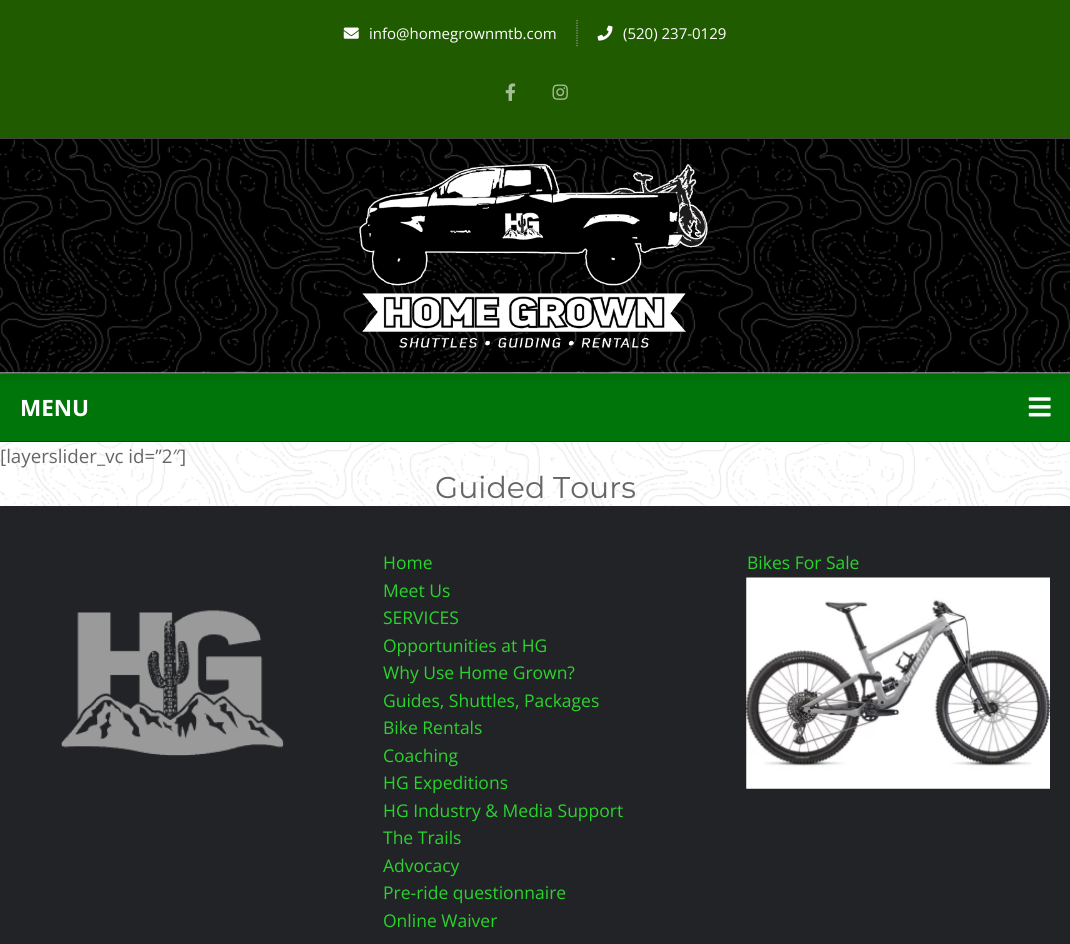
import math
import cairocffi as cairo

surface = cairo.ImageSurface(cairo.FORMAT_RGB24, 1070, 944)
cr = cairo.Context(surface)
options = cairo.FontOptions()
options.set_hint_metrics(cairo.HINT_METRICS_OFF)
options.set_hint_style(cairo.HINT_STYLE_NONE)
cr.set_font_options(options)
cr.set_miter_limit(4)


def use_color(code):
    cr.set_source_rgb(*(v / 255 for v in bytes.fromhex(code[-6:])))


def round_rect(x, y, w, h, r):
    cr.new_sub_path()
    for i, (u, v) in enumerate([(x + w - r, y + h - r), (x + r, y + h - r), (x + r, y + r), (x + w - r, y + r)]):
        cr.arc(u, v, r, i * math.pi / 2, (i + 1) * math.pi / 2)
    cr.close_path()


def shadow(x, y, w, h, r, blur, alpha):
    cr.push_group_with_content(cairo.CONTENT_ALPHA)
    cr.set_operator(cairo.OPERATOR_SOURCE)
    for i in range(15, -16, -2):
        e = blur * i / 6
        if min(w, h) + 2 * e > 0:
            cr.set_source_rgba(0, 0, 0, alpha * math.erfc((i - 1) / 8.5) / 2)
            round_rect(x - e, y - e, w + 2 * e, h + 2 * e, max(0, min(r + e + blur * .6, min(w, h) / 2 + e)))
            cr.fill()
    cr.mask(cr.pop_group())


def picture(path, x, y, w, h):
    cr.save()
    cr.set_source_surface(cairo.ImageSurface.create_from_png(path), x, y)
    cr.rectangle(x, y, w, h)
    cr.fill()
    cr.restore()


use_color("#ffffff")
cr.paint()
picture("img1.png", 0, 372, 1070, 134)
use_color("#007509")
cr.rectangle(0, 374, 1070, 67)
cr.fill()
use_color("#3c9100")
cr.rectangle(0, 373, 1070, 1)
cr.fill()
use_color("#000000")
shadow(0, 144, 1070, 234, 0, 6, 0.08)
use_color("#205b00")
cr.rectangle(0, 0, 1070, 138)
cr.fill()
use_color("#444444")
cr.rectangle(0, 138, 1070, 1)
cr.fill()
picture("img2.png", 343, 27, 16, 12)
cr.select_font_face("Open Sans")
cr.set_font_size(15)
use_color("#ffffff")
cr.move_to(369, 39)
cr.show_text("info@homegrownmtb.com")
cr.new_path()
cr.move_to(577, 20)
cr.line_to(577, 47.5)
use_color("#999999")
cr.set_line_width(1.2)
cr.set_dash([1.25, 1.25])
cr.stroke()
picture("img3.png", 597, 25, 16, 16)
use_color("#ffffff")
cr.move_to(623, 39)
cr.show_text("(520) 237-0129")
picture("img4.png", 505, 83, 11, 18)
picture("img5.png", 552, 84, 16, 16)
picture("img6.png", 0, 139, 1070, 234)
picture("img7.png", 359, 163, 349, 185)
use_color("#123f16")
cr.rectangle(0, 441, 1070, 1)
cr.fill()
cr.select_font_face("Open Sans", cairo.FONT_SLANT_NORMAL, cairo.FONT_WEIGHT_BOLD)
cr.set_font_size(22.5)
use_color("#ffffff")
cr.move_to(20, 416)
cr.show_text("MENU")
picture("img8.png", 1028, 397, 23, 20)
cr.select_font_face("Open Sans")
cr.set_font_size(18.75)
use_color("#666666")
cr.move_to(0, 463)
cr.show_text("[layerslider_vc id=”2″]")
cr.select_font_face("Montserrat Thin")
cr.set_font_size(30)
cr.move_to(435, 498)
cr.show_text("Guided Tours")
use_color("#222326")
cr.rectangle(0, 506, 1070, 438)
cr.fill()
picture("img9.png", 61, 610, 223, 146)
cr.select_font_face("Open Sans")
cr.set_font_size(17.5)
use_color("#2ad32d")
cr.move_to(383, 569)
cr.show_text("Home")
cr.move_to(383, 597)
cr.show_text("Meet Us")
cr.move_to(383, 624)
cr.show_text("SERVICES")
cr.move_to(383, 652)
cr.show_text("Opportunities at HG")
cr.move_to(383, 679)
cr.show_text("Why Use Home Grown?")
cr.move_to(383, 707)
cr.show_text("Guides, Shuttles, Packages")
cr.move_to(383, 734)
cr.show_text("Bike Rentals")
cr.move_to(383, 762)
cr.show_text("Coaching")
cr.move_to(383, 789)
cr.show_text("HG Expeditions")
cr.move_to(383, 817)
cr.show_text("HG Industry & Media Support")
cr.move_to(383, 844)
cr.show_text("The Trails")
cr.move_to(383, 872)
cr.show_text("Advocacy")
cr.move_to(383, 899)
cr.show_text("Pre-ride questionnaire")
cr.move_to(383, 927)
cr.show_text("Online Waiver")
cr.move_to(747, 569)
cr.show_text("Bikes For Sale")
picture("img10.png", 746, 577, 304, 212)
surface.write_to_png("result.png")
